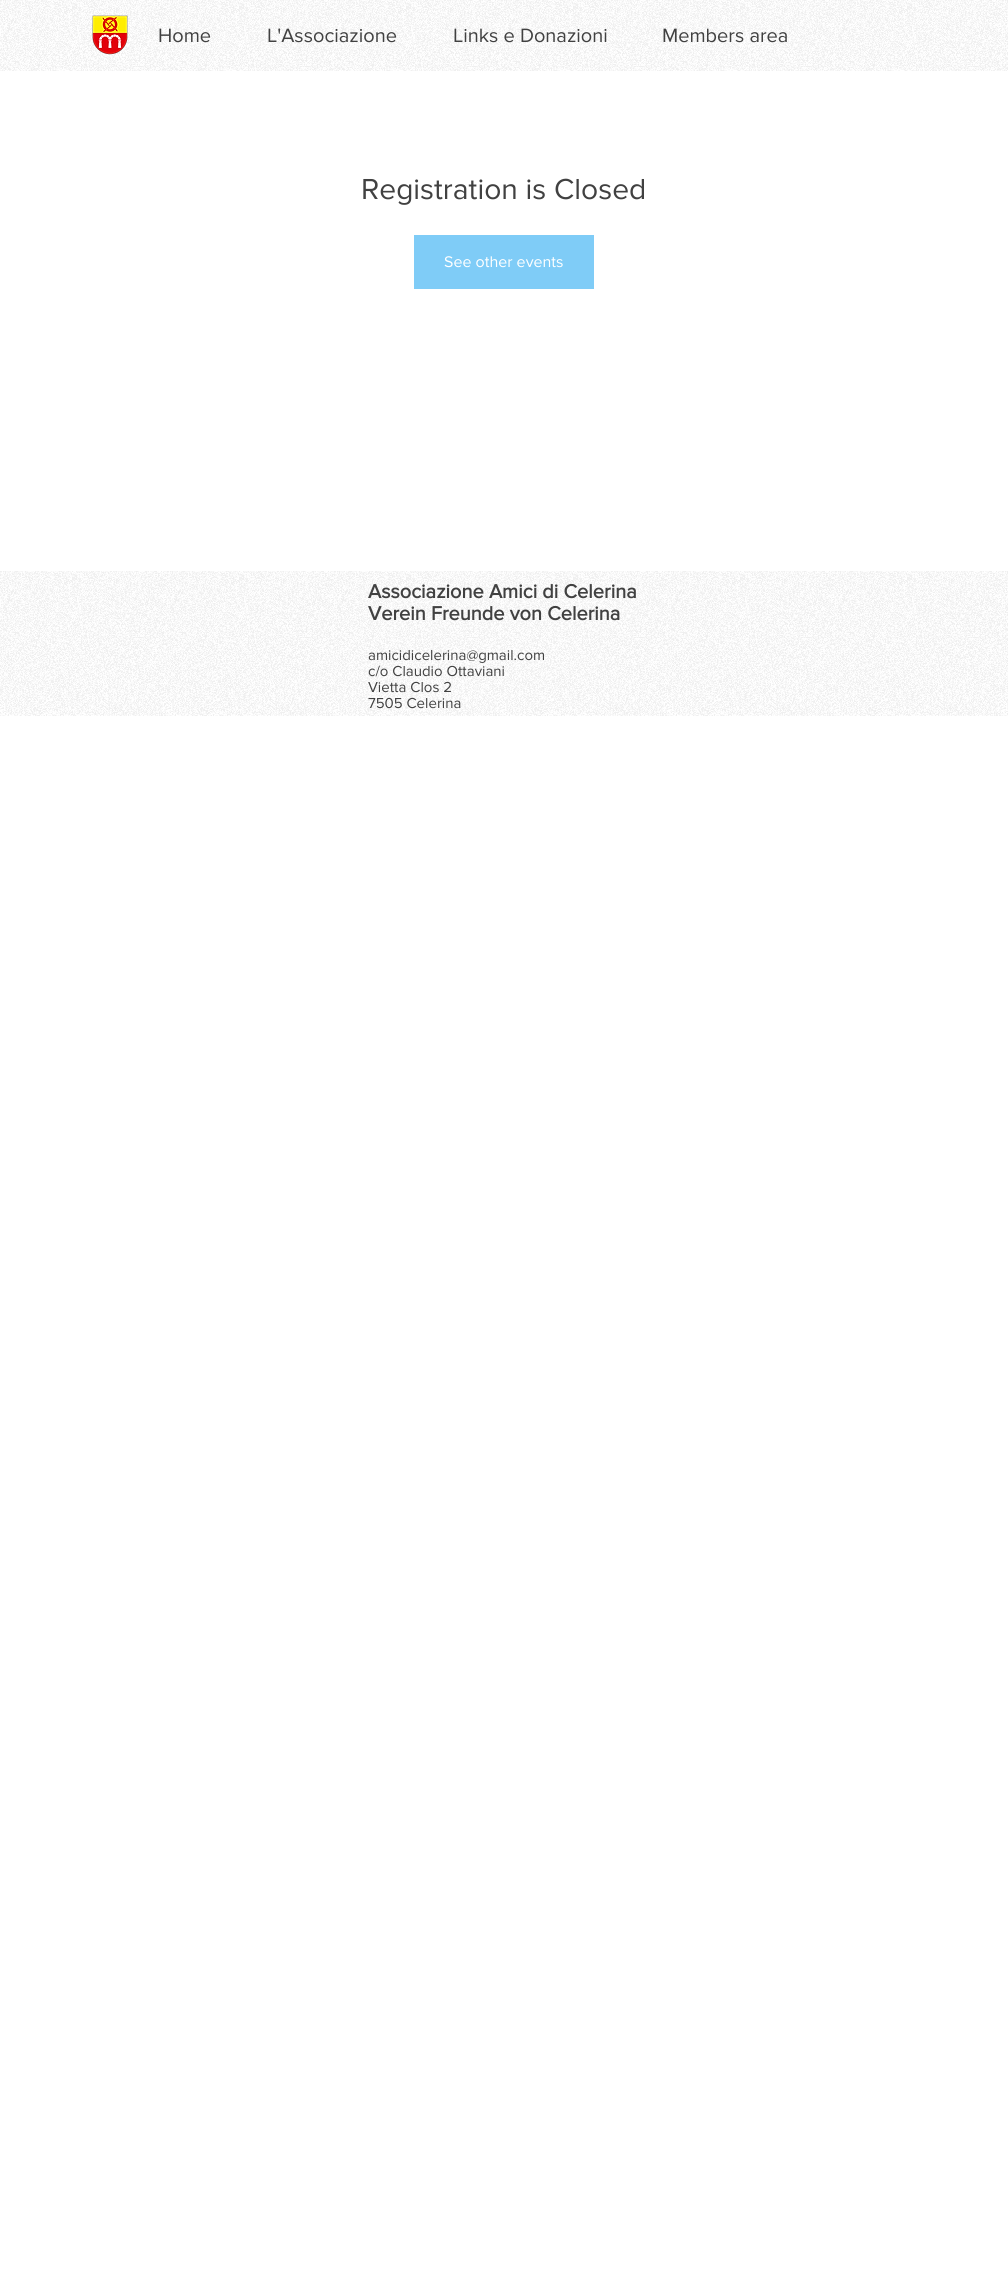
import math
import cairocffi as cairo

surface = cairo.ImageSurface(cairo.FORMAT_RGB24, 1008, 2287)
cr = cairo.Context(surface)
options = cairo.FontOptions()
options.set_hint_metrics(cairo.HINT_METRICS_OFF)
options.set_hint_style(cairo.HINT_STYLE_NONE)
cr.set_font_options(options)
cr.set_miter_limit(4)


def use_color(code):
    cr.set_source_rgb(*(v / 255 for v in bytes.fromhex(code[-6:])))


def picture(path, x, y, w, h):
    cr.save()
    cr.set_source_surface(cairo.ImageSurface.create_from_png(path), x, y)
    cr.rectangle(x, y, w, h)
    cr.fill()
    cr.restore()


use_color("#ffffff")
cr.paint()
picture("img1.png", 0, 0, 1008, 71)
picture("img2.png", 92, 15, 36, 40)
cr.select_font_face("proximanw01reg")
cr.set_font_size(20)
use_color("#414141")
cr.move_to(158, 42)
cr.show_text("Home")
cr.move_to(267, 42)
cr.show_text("L'Associazione")
cr.move_to(453, 42)
cr.show_text("Links e Donazioni")
cr.move_to(662, 42)
cr.show_text("Members area")
cr.set_font_size(30)
cr.move_to(361, 199)
cr.show_text("Registration is Closed")
use_color("#7fccf7")
cr.rectangle(414, 235, 180, 54)
cr.fill()
cr.set_font_size(16)
use_color("#ffffff")
cr.move_to(444, 267)
cr.show_text("See other events")
picture("img3.png", 0, 571, 1008, 145)
cr.select_font_face("proximanw01reg", cairo.FONT_SLANT_NORMAL, cairo.FONT_WEIGHT_BOLD)
cr.set_font_size(20)
use_color("#414141")
cr.move_to(368, 598)
cr.show_text("Associazione Amici di Celerina")
cr.move_to(368, 620)
cr.show_text("Verein Freunde von Celerina")
cr.select_font_face("proximanw01reg")
cr.set_font_size(15)
cr.move_to(368, 660)
cr.show_text("amicidicelerina@gmail.com")
cr.move_to(368, 676)
cr.show_text("c/o Claudio Ottaviani")
cr.move_to(368, 692)
cr.show_text("Vietta Clos 2")
cr.move_to(368, 708)
cr.show_text("7505 Celerina")
surface.write_to_png("result.png")
